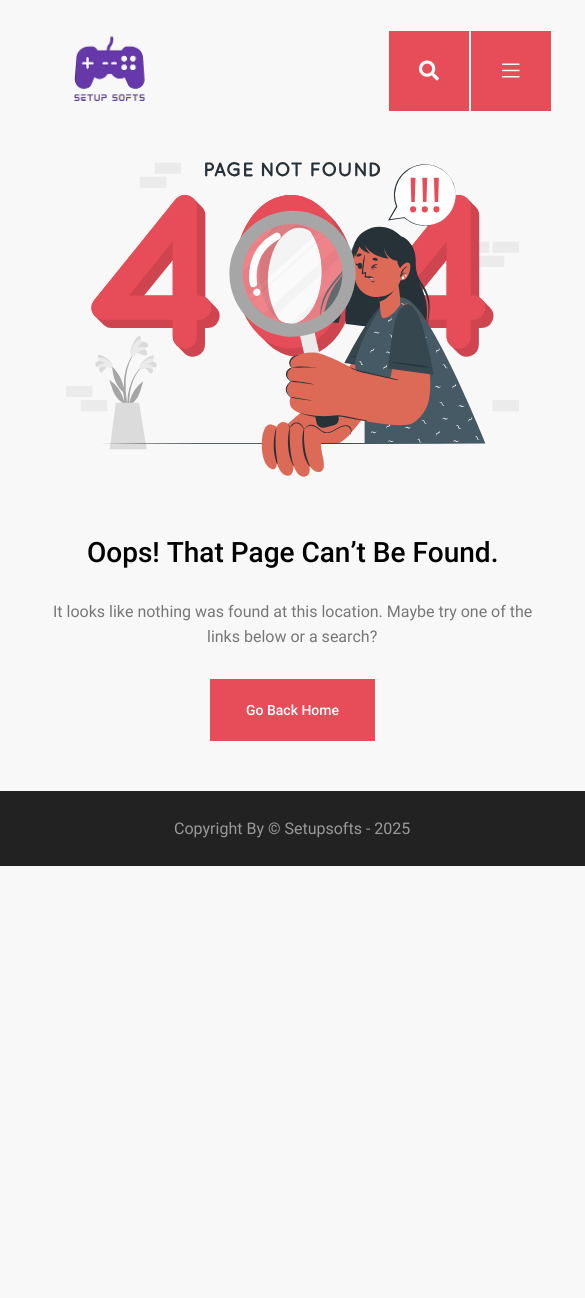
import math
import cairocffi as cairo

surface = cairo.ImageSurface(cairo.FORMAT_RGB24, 585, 1298)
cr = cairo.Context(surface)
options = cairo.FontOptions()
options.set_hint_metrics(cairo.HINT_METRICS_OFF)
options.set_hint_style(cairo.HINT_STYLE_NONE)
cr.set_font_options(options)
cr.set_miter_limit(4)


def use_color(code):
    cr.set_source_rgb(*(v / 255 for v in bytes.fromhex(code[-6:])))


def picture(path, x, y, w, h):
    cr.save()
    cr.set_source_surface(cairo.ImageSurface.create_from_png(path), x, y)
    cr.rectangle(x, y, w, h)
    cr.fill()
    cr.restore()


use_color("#f8f8f8")
cr.paint()
picture("img1.png", 74, 36, 71, 65)
use_color("#e74d58")
cr.rectangle(389, 31, 80, 80)
cr.fill()
picture("img2.png", 419, 60, 20, 21)
cr.rectangle(471, 31, 80, 80)
cr.fill()
picture("img3.png", 502, 63, 18, 15)
picture("img4.png", 66, 162, 453, 315)
cr.select_font_face("Roboto Medium")
cr.set_font_size(28)
use_color("#000000")
cr.move_to(87, 562)
cr.show_text("Oops! That Page Can’t Be Found.")
cr.select_font_face("Roboto")
cr.set_font_size(16)
use_color("#777777")
cr.move_to(53, 617)
cr.show_text("It looks like nothing was found at this location. Maybe try one of the")
cr.move_to(207, 642)
cr.show_text("links below or a search?")
use_color("#e74d58")
cr.rectangle(210, 679, 165, 62)
cr.fill()
cr.select_font_face("Roboto Medium")
cr.set_font_size(14)
use_color("#ffffff")
cr.move_to(246, 715)
cr.show_text("Go Back Home")
use_color("#222222")
cr.rectangle(0, 791, 585, 75)
cr.fill()
cr.select_font_face("Roboto")
cr.set_font_size(16)
use_color("#999999")
cr.move_to(174, 834)
cr.show_text("Copyright By © Setupsofts - 2025")
surface.write_to_png("result.png")
